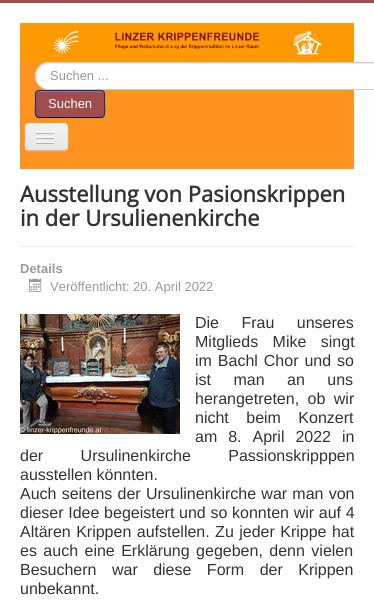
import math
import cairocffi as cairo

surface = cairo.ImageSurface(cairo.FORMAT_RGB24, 374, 609)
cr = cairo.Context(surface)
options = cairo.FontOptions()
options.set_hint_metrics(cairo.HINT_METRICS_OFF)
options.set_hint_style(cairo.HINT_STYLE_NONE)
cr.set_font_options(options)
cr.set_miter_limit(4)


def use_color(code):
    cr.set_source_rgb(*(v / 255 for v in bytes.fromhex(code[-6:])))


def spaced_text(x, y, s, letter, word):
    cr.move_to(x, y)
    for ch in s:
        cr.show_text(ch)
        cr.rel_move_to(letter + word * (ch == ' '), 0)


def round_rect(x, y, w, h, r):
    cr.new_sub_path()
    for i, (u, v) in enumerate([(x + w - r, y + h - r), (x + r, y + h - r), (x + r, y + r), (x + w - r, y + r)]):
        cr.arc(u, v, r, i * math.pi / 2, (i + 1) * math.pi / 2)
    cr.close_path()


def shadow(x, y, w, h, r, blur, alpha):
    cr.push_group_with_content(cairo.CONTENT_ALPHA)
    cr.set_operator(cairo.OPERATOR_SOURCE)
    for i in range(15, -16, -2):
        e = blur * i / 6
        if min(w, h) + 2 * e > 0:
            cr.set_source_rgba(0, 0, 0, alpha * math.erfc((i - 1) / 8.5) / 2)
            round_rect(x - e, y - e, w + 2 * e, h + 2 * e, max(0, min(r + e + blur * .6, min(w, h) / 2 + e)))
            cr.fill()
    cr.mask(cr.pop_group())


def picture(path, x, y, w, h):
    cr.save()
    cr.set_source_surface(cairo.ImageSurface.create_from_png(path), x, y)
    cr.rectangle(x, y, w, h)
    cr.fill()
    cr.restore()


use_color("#ffffff")
cr.paint()
use_color("#a14d4d")
cr.rectangle(0, 0, 374, 3)
cr.fill()
use_color("#ff931f")
cr.rectangle(20, 62, 334, 107)
cr.fill()
picture("img1.png", 20, 23, 334, 39)
use_color("#ffffff")
round_rect(35, 62, 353, 28, 14)
cr.fill()
use_color("#ececec")
cr.new_path()
cr.move_to(49, 64)
cr.line_to(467, 64)
cr.curve_to(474, 64, 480, 70, 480, 77)
cr.curve_to(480, 72, 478, 68, 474, 65)
cr.curve_to(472, 64, 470, 63, 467, 63)
cr.line_to(49, 63)
cr.curve_to(42, 63, 36, 69, 36, 77)
cr.curve_to(36, 70, 42, 64, 49, 64)
cr.close_path()
cr.fill()
round_rect(35.5, 62.5, 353, 27, 13.5)
use_color("#cccccc")
cr.set_line_width(1)
cr.stroke()
cr.select_font_face("Liberation Sans")
cr.set_font_size(13)
use_color("#999999")
cr.move_to(50, 80)
cr.show_text("Suchen ...")
use_color("#000000")
shadow(35, 91, 70, 28, 4, 1, 0.05)
use_color("#a14d4d")
round_rect(35, 90, 70, 28, 4)
cr.fill()
use_color("#b47171")
cr.new_path()
cr.move_to(39, 92)
cr.line_to(101, 92)
cr.curve_to(103, 92, 104, 93, 104, 95)
cr.curve_to(104, 88, 95, 91, 91, 91)
cr.line_to(49, 91)
cr.curve_to(45, 91, 36, 88, 36, 95)
cr.curve_to(36, 93, 37, 92, 39, 92)
cr.close_path()
cr.fill()
cr.new_path()
cr.move_to(103.5, 116.5)
cr.line_to(101.5, 117.5)
cr.line_to(38.5, 117.5)
cr.line_to(36.5, 116.5)
use_color("#001641")
cr.stroke()
cr.new_path()
cr.move_to(36.5, 116.5)
cr.curve_to(34.5, 114, 35.5, 106.5, 35.5, 104)
cr.curve_to(35.5, 88.5, 33.5, 90.5, 49.5, 90.5)
cr.line_to(90.5, 90.5)
cr.curve_to(106.5, 90.5, 104.5, 88.5, 104.5, 104)
cr.curve_to(104.5, 106.5, 105.5, 114, 103.5, 116.5)
use_color("#002f8d")
cr.stroke()
use_color("#ffffff")
cr.move_to(48, 108)
cr.show_text("Suchen")
use_color("#ff9b30")
cr.new_path()
cr.move_to(25, 147)
cr.curve_to(25, 153, 30, 152, 35, 152)
cr.line_to(58, 152)
cr.curve_to(63, 152, 68, 153, 68, 147)
cr.curve_to(68, 149, 66, 151, 64, 151)
cr.line_to(29, 151)
cr.curve_to(27, 151, 25, 149, 25, 147)
cr.close_path()
cr.fill()
use_color("#ededed")
round_rect(25, 123, 43, 28, 4)
cr.fill()
cr.save()
round_rect(25, 123, 43, 28, 4)
cr.clip()
gradient = cairo.LinearGradient(47, 124, 47, 150)
gradient.add_color_stop_rgba(0, 0.949, 0.949, 0.949, 1)
gradient.add_color_stop_rgba(1, 0.902, 0.902, 0.902, 1)
cr.set_source(gradient)
cr.rectangle(25, 124, 43, 26)
cr.fill()
cr.restore()
cr.new_path()
cr.move_to(66.5, 149.5)
cr.curve_to(66, 150, 65, 150.5, 64, 150.5)
cr.line_to(29, 150.5)
cr.curve_to(28, 150.5, 27, 150, 26.5, 149.5)
use_color("#bfbfbf")
cr.stroke()
cr.new_path()
cr.move_to(26.5, 149.5)
cr.curve_to(24.5, 147, 25.5, 139.5, 25.5, 137)
cr.curve_to(25.5, 125, 23, 123.5, 35, 123.5)
cr.line_to(58, 123.5)
cr.curve_to(70, 123.5, 67.5, 125, 67.5, 137)
cr.curve_to(67.5, 139.5, 68.5, 147, 66.5, 149.5)
use_color("#e6e6e6")
cr.stroke()
use_color("#b3b3b3")
cr.new_path()
cr.move_to(36, 132.5)
cr.curve_to(35, 134.5, 39.5, 134, 39.5, 134)
cr.line_to(50.5, 134)
cr.curve_to(50.5, 134, 55, 134.5, 54, 132.5)
cr.curve_to(53, 133.5, 46.5, 133, 45, 133)
cr.curve_to(43.5, 133, 37, 133.5, 36, 132.5)
cr.close_path()
cr.fill()
use_color("#f5f5f5")
round_rect(36, 131, 18, 2, 1)
cr.fill()
use_color("#b0b0b0")
cr.new_path()
cr.move_to(36, 137.5)
cr.curve_to(35, 139.5, 39.5, 139, 39.5, 139)
cr.line_to(50.5, 139)
cr.curve_to(50.5, 139, 55, 139.5, 54, 137.5)
cr.curve_to(53, 138.5, 46.5, 138, 45, 138)
cr.curve_to(43.5, 138, 37, 138.5, 36, 137.5)
cr.close_path()
cr.fill()
use_color("#f5f5f5")
round_rect(36, 136, 18, 2, 1)
cr.fill()
use_color("#afafaf")
cr.new_path()
cr.move_to(36, 142.5)
cr.curve_to(35, 144.5, 39.5, 144, 39.5, 144)
cr.line_to(50.5, 144)
cr.curve_to(50.5, 144, 55, 144.5, 54, 142.5)
cr.curve_to(53, 143.5, 46.5, 143, 45, 143)
cr.curve_to(43.5, 143, 37, 143.5, 36, 142.5)
cr.close_path()
cr.fill()
use_color("#f5f5f5")
round_rect(36, 141, 18, 2, 1)
cr.fill()
use_color("#eeeeee")
cr.rectangle(20, 246, 334, 1)
cr.fill()
cr.select_font_face("Open Sans", cairo.FONT_SLANT_NORMAL, cairo.FONT_WEIGHT_BOLD)
cr.set_font_size(22)
use_color("#333333")
cr.move_to(20, 202)
cr.show_text("Ausstellung von Pasionskrippen")
cr.move_to(20, 226)
cr.show_text("in der Ursulienenkirche")
cr.select_font_face("Liberation Sans", cairo.FONT_SLANT_NORMAL, cairo.FONT_WEIGHT_BOLD)
cr.set_font_size(13)
use_color("#999999")
cr.move_to(20, 273)
cr.show_text("Details")
picture("img2.png", 29, 278, 13, 14)
cr.select_font_face("Liberation Sans")
cr.move_to(50, 291)
cr.show_text("Veröffentlicht: 20. April 2022")
picture("img3.png", 20, 314, 160, 120)
cr.set_font_size(16)
use_color("#333333")
spaced_text(195, 328, "Die Frau unseres", 0, 18)
spaced_text(195, 347, "Mitglieds Mike singt", 0, 10)
spaced_text(195, 366, "im Bachl Chor und so", 0, 1.5)
spaced_text(195, 385, "ist man an uns", 0, 18)
spaced_text(195, 404, "herangetreten, ob wir", 0, 4)
spaced_text(195, 423, "nicht beim Konzert", 0, 13)
spaced_text(195, 442, "am 8. April 2022 in", 0, 6.5)
spaced_text(20, 461, "der Ursulinenkirche Passionskripppen", 0, 33)
cr.move_to(20, 480)
cr.show_text("ausstellen könnten.")
spaced_text(20, 499, "Auch seitens der Ursulinenkirche war man von", 0, 0.75)
spaced_text(20, 518, "dieser Idee begeistert und so konnten wir auf 4", 0, 0.25)
spaced_text(20, 537, "Altären Krippen aufstellen. Zu jeder Krippe hat", 0, 1)
spaced_text(20, 556, "es auch eine Erklärung gegeben, denn vielen", 0, 2)
spaced_text(20, 575, "Besuchern war diese Form der Krippen", 0, 11)
cr.move_to(20, 594)
cr.show_text("unbekannt.")
surface.write_to_png("result.png")
